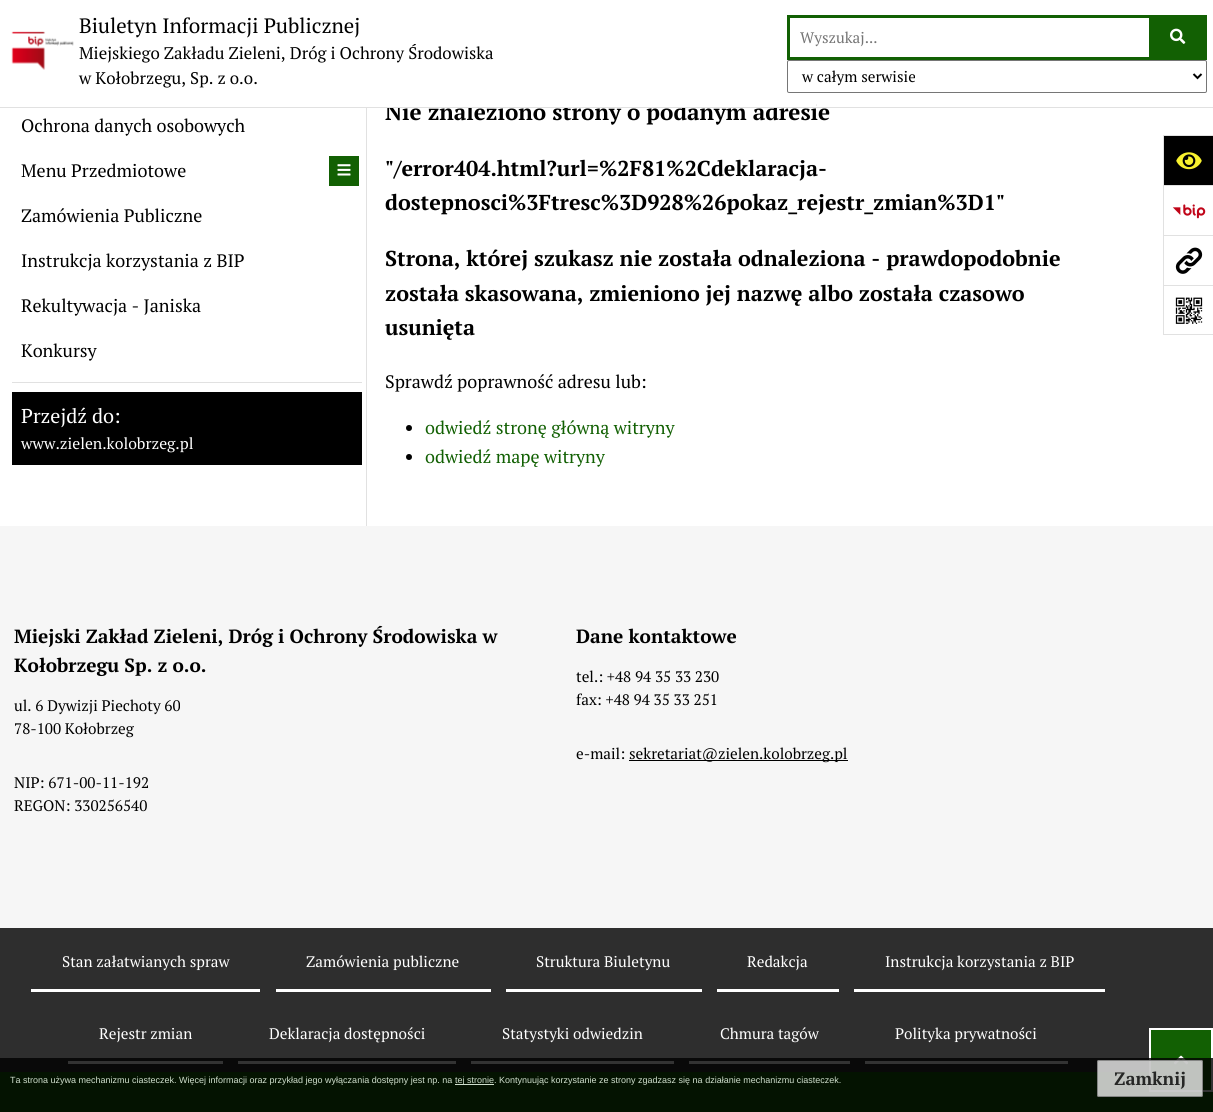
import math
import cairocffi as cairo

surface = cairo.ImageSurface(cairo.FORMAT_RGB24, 1213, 1112)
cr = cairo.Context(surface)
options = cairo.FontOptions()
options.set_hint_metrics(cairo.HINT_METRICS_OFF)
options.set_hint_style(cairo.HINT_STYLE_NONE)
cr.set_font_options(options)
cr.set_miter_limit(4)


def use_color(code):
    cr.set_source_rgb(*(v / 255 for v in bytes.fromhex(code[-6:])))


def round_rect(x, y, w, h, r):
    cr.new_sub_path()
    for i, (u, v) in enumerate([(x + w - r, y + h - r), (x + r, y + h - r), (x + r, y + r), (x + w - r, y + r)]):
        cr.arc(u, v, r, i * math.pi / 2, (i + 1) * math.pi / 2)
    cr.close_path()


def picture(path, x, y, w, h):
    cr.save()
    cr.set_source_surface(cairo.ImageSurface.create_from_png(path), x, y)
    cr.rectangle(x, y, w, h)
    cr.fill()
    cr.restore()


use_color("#ffffff")
cr.paint()
cr.select_font_face("PT Serif", cairo.FONT_SLANT_NORMAL, cairo.FONT_WEIGHT_BOLD)
cr.set_font_size(22.5)
use_color("#000000")
cr.move_to(385, 120)
cr.show_text("Nie znaleziono strony o podanym adresie")
use_color("#ffffff")
cr.rectangle(385, 103, 431, 4)
cr.fill()
use_color("#e1e1e1")
cr.rectangle(0, 107, 1213, 1)
cr.fill()
picture("img1.png", 11, 31, 63, 39)
cr.select_font_face("PT Serif")
cr.set_font_size(20.75)
use_color("#000000")
cr.move_to(79, 33)
cr.show_text("Biuletyn Informacji Publicznej")
cr.set_font_size(16.85)
cr.move_to(79, 59)
cr.show_text("Miejskiego Zakładu Zieleni, Dróg i Ochrony Środowiska")
cr.move_to(79, 84)
cr.show_text("w Kołobrzegu, Sp. z o.o.")
cr.rectangle(788.5, 16.5, 362, 42)
use_color("#126003")
cr.set_line_width(3)
cr.stroke()
cr.set_font_size(15.25)
use_color("#757575")
cr.move_to(800, 43)
cr.show_text("Wyszukaj...")
use_color("#126003")
cr.rectangle(1152, 15, 55, 45)
cr.fill()
picture("img2.png", 1170, 28, 16, 16)
round_rect(787.5, 60.5, 419, 32, 1.5)
use_color("#767676")
cr.set_line_width(1)
cr.stroke()
cr.new_path()
cr.move_to(1193.5, 74)
cr.line_to(1197.5, 78)
cr.line_to(1201.5, 74)
use_color("#000000")
cr.set_line_width(2)
cr.stroke()
cr.move_to(802, 82)
cr.show_text("w całym serwisie")
cr.set_font_size(18)
cr.move_to(21, 132)
cr.show_text("Ochrona danych osobowych")
cr.move_to(21, 177)
cr.show_text("Menu Przedmiotowe")
use_color("#126003")
cr.rectangle(329, 156, 30, 30)
cr.fill()
picture("img3.png", 337, 164, 14, 12)
use_color("#000000")
cr.move_to(21, 222)
cr.show_text("Zamówienia Publiczne")
cr.move_to(21, 267)
cr.show_text("Instrukcja korzystania z BIP")
cr.move_to(21, 312)
cr.show_text("Rekultywacja - Janiska")
cr.move_to(21, 357)
cr.show_text("Konkursy")
use_color("#e1e1e1")
cr.rectangle(12, 382, 350, 1)
cr.fill()
use_color("#000000")
cr.rectangle(1164, 136, 49, 49)
cr.fill()
use_color("#e1e1e1")
cr.rectangle(1163, 135, 50, 1)
cr.fill()
cr.rectangle(1163, 135, 1, 50)
cr.fill()
picture("img4.png", 1176, 152, 26, 18)
cr.rectangle(1163, 185, 50, 1)
cr.fill()
cr.rectangle(1163, 185, 1, 50)
cr.fill()
picture("img5.png", 1172, 204, 34, 15)
cr.rectangle(1163, 235, 50, 1)
cr.fill()
cr.rectangle(1163, 235, 1, 50)
cr.fill()
picture("img6.png", 1175, 247, 28, 27)
cr.rectangle(1163, 285, 50, 1)
cr.fill()
cr.rectangle(1163, 334, 50, 1)
cr.fill()
cr.rectangle(1163, 285, 1, 50)
cr.fill()
picture("img7.png", 1175, 297, 28, 27)
use_color("#000000")
cr.rectangle(12, 392, 350, 73)
cr.fill()
cr.set_font_size(20)
use_color("#ffffff")
cr.move_to(21, 423)
cr.show_text("Przejdź do:")
cr.set_font_size(15.75)
cr.move_to(21, 449)
cr.show_text("www.zielen.kolobrzeg.pl")
use_color("#e1e1e1")
cr.rectangle(366, 108, 1, 418)
cr.fill()
cr.select_font_face("PT Serif", cairo.FONT_SLANT_NORMAL, cairo.FONT_WEIGHT_BOLD)
cr.set_font_size(21.6)
use_color("#000000")
cr.move_to(385, 176)
cr.show_text("\"/error404.html?url=%2F81%2Cdeklaracja-")
cr.move_to(385, 210)
cr.show_text("dostepnosci%3Ftresc%3D928%26pokaz_rejestr_zmian%3D1\"")
cr.move_to(385, 266)
cr.show_text("Strona, której szukasz nie została odnaleziona - prawdopodobnie")
cr.move_to(385, 301)
cr.show_text("została skasowana, zmieniono jej nazwę albo została czasowo")
cr.move_to(385, 335)
cr.show_text("usunięta")
cr.select_font_face("PT Serif")
cr.set_font_size(18)
cr.move_to(385, 388)
cr.show_text("Sprawdź poprawność adresu lub:")
cr.new_path()
cr.arc(409, 428, 3, 0, 2 * math.pi)
cr.fill()
use_color("#126003")
cr.move_to(425, 434)
cr.show_text("odwiedź stronę główną witryny")
use_color("#000000")
cr.new_path()
cr.arc(409, 457, 3, 0, 2 * math.pi)
cr.fill()
use_color("#126003")
cr.move_to(425, 463)
cr.show_text("odwiedź mapę witryny")
use_color("#f6f6f6")
cr.rectangle(0, 526, 1213, 402)
cr.fill()
cr.select_font_face("PT Serif", cairo.FONT_SLANT_NORMAL, cairo.FONT_WEIGHT_BOLD)
cr.set_font_size(19.1)
use_color("#000000")
cr.move_to(14, 643)
cr.show_text("Miejski Zakład Zieleni, Dróg i Ochrony Środowiska w")
cr.move_to(14, 672)
cr.show_text("Kołobrzegu Sp. z o.o.")
cr.select_font_face("PT Serif")
cr.set_font_size(15.25)
cr.move_to(14, 711)
cr.show_text("ul. 6 Dywizji Piechoty 60")
cr.move_to(14, 734)
cr.show_text("78-100 Kołobrzeg")
cr.move_to(14, 788)
cr.show_text("NIP: 671-00-11-192")
cr.move_to(14, 811)
cr.show_text("REGON: 330256540")
cr.select_font_face("PT Serif", cairo.FONT_SLANT_NORMAL, cairo.FONT_WEIGHT_BOLD)
cr.set_font_size(19.1)
cr.move_to(576, 643)
cr.show_text("Dane kontaktowe")
cr.select_font_face("PT Serif")
cr.set_font_size(15.25)
cr.move_to(576, 682)
cr.show_text("tel.: +48 94 35 33 230")
cr.move_to(576, 705)
cr.show_text("fax: +48 94 35 33 251")
cr.move_to(576, 759)
cr.show_text("e-mail:")
cr.rectangle(629, 760, 219, 1)
cr.fill()
cr.move_to(629, 759)
cr.show_text("sekretariat@zielen.kolobrzeg.pl")
use_color("#2e2e2e")
cr.rectangle(0, 928, 1213, 144)
cr.fill()
use_color("#ffffff")
cr.rectangle(31, 989, 229, 3)
cr.fill()
cr.move_to(62, 967)
cr.show_text("Stan załatwianych spraw")
cr.rectangle(276, 989, 215, 3)
cr.fill()
cr.move_to(306, 967)
cr.show_text("Zamówienia publiczne")
cr.rectangle(506, 989, 196, 3)
cr.fill()
cr.move_to(536, 967)
cr.show_text("Struktura Biuletynu")
cr.rectangle(717, 989, 122, 3)
cr.fill()
cr.move_to(747, 967)
cr.show_text("Redakcja")
cr.rectangle(854, 989, 251, 3)
cr.fill()
cr.move_to(885, 967)
cr.show_text("Instrukcja korzystania z BIP")
cr.rectangle(68, 1061, 155, 3)
cr.fill()
cr.move_to(99, 1039)
cr.show_text("Rejestr zmian")
cr.rectangle(238, 1061, 218, 3)
cr.fill()
cr.move_to(269, 1039)
cr.show_text("Deklaracja dostępności")
cr.rectangle(471, 1061, 203, 3)
cr.fill()
cr.move_to(502, 1039)
cr.show_text("Statystyki odwiedzin")
cr.rectangle(689, 1061, 161, 3)
cr.fill()
cr.move_to(720, 1039)
cr.show_text("Chmura tagów")
cr.rectangle(865, 1061, 203, 3)
cr.fill()
cr.move_to(895, 1039)
cr.show_text("Polityka prywatności")
use_color("#126003")
cr.rectangle(0, 1072, 1213, 40)
cr.fill()
cr.rectangle(1151, 1030, 60, 42)
cr.fill()
cr.rectangle(1150, 1029, 62, 62)
use_color("#ffffff")
cr.stroke()
picture("img8.png", 1173, 1055, 16, 10)
cr.set_source_rgba(0, 0, 0, 0.8)
cr.rectangle(0, 1058, 1213, 54)
cr.fill()
cr.select_font_face("Liberation Sans")
cr.set_font_size(9)
use_color("#d0dfcd")
cr.move_to(10, 1083)
cr.show_text("Ta strona używa mechanizmu ciasteczek. Więcej informacji oraz przykład jego wyłączania dostępny jest np. na")
cr.rectangle(455, 1084, 39, 1)
cr.fill()
cr.move_to(455, 1083)
cr.show_text("tej stronie. Kontynuując korzystanie ze strony zgadzasz się na działanie mechanizmu ciasteczek.")
cr.set_source_rgba(0.937, 0.937, 0.937, 0.8)
round_rect(1097, 1060, 106, 37, 2)
cr.fill()
round_rect(1097.5, 1060.5, 105, 36, 1.5)
cr.set_source_rgba(0.463, 0.463, 0.463, 0.8)
cr.set_line_width(1)
cr.stroke()
cr.select_font_face("PT Serif", cairo.FONT_SLANT_NORMAL, cairo.FONT_WEIGHT_BOLD)
cr.set_font_size(18)
use_color("#262726")
cr.move_to(1114, 1085)
cr.show_text("Zamknij")
surface.write_to_png("result.png")
